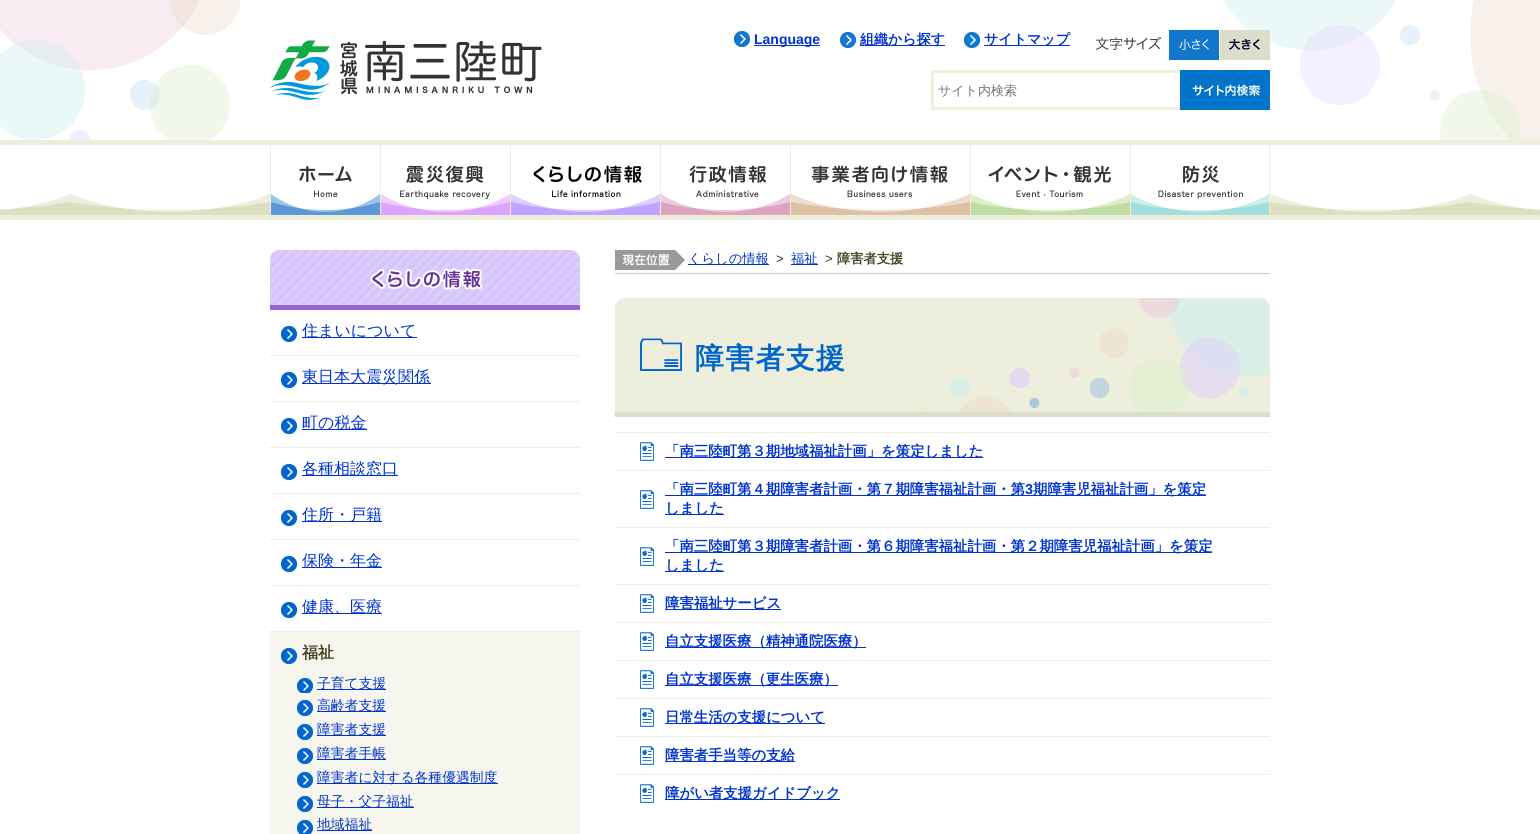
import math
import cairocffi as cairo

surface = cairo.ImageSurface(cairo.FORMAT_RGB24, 1540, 834)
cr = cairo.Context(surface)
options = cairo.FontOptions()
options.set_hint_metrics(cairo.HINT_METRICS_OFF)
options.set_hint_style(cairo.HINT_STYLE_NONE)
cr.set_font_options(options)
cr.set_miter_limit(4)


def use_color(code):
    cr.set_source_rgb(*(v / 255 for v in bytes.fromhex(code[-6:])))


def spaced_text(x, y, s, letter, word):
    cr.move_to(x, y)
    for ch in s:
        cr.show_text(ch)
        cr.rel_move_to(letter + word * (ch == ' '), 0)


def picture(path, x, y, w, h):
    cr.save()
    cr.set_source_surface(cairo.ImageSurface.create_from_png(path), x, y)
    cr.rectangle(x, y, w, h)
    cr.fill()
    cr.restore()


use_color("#ffffff")
cr.paint()
picture("img1.png", 0, 0, 1540, 140)
picture("img2.png", 270, 40, 272, 60)
picture("img3.png", 734, 31, 16, 16)
use_color("#0033cc")
cr.rectangle(754, 45, 66, 1)
cr.fill()
cr.select_font_face("Liberation Sans", cairo.FONT_SLANT_NORMAL, cairo.FONT_WEIGHT_BOLD)
cr.set_font_size(14)
cr.move_to(754, 44)
cr.show_text("Language")
picture("img3.png", 840, 32, 16, 16)
cr.rectangle(860, 45, 85, 1)
cr.fill()
cr.select_font_face("WenQuanYi Zen Hei", cairo.FONT_SLANT_NORMAL, cairo.FONT_WEIGHT_BOLD)
cr.move_to(860, 44)
cr.show_text("組織から探す")
picture("img3.png", 964, 32, 16, 16)
cr.rectangle(984, 45, 86, 1)
cr.fill()
cr.move_to(984, 44)
cr.show_text("サイトマップ")
picture("img4.png", 1096, 30, 174, 30)
picture("img5.png", 1169, 30, 50, 30)
use_color("#eeeedd")
cr.rectangle(931, 70, 250, 3)
cr.fill()
cr.rectangle(931, 107, 250, 3)
cr.fill()
cr.rectangle(931, 70, 3, 40)
cr.fill()
cr.select_font_face("WenQuanYi Zen Hei Medium")
cr.set_font_size(13)
use_color("#757575")
cr.move_to(938, 95)
cr.show_text("サイト内検索")
picture("img6.png", 1180, 70, 90, 40)
picture("img7.png", 0, 194, 1540, 21)
use_color("#eeeedd")
cr.rectangle(0, 140, 1540, 5)
cr.fill()
cr.rectangle(0, 215, 1540, 5)
cr.fill()
picture("img8.png", 271, 166, 109, 49)
cr.rectangle(270, 145, 1, 70)
cr.fill()
picture("img9.png", 381, 165, 129, 50)
cr.rectangle(380, 145, 1, 70)
cr.fill()
picture("img10.png", 511, 165, 149, 50)
cr.rectangle(510, 145, 1, 70)
cr.fill()
picture("img11.png", 661, 165, 129, 50)
cr.rectangle(660, 145, 1, 70)
cr.fill()
picture("img12.png", 791, 165, 179, 50)
cr.rectangle(790, 145, 1, 70)
cr.fill()
picture("img13.png", 971, 165, 159, 50)
cr.rectangle(970, 145, 1, 70)
cr.fill()
picture("img14.png", 1131, 165, 138, 50)
cr.rectangle(1269, 145, 1, 70)
cr.fill()
cr.rectangle(1130, 145, 1, 70)
cr.fill()
picture("img15.png", 270, 250, 310, 60)
cr.rectangle(270, 355, 310, 1)
cr.fill()
picture("img16.png", 281, 326, 16, 16)
use_color("#0033cc")
cr.rectangle(302, 337, 115, 1)
cr.fill()
cr.set_font_size(16)
cr.move_to(302, 336)
cr.show_text("住まいについて")
use_color("#eeeedd")
cr.rectangle(270, 401, 310, 1)
cr.fill()
picture("img16.png", 281, 372, 16, 16)
use_color("#0033cc")
cr.rectangle(302, 383, 129, 1)
cr.fill()
cr.move_to(302, 382)
cr.show_text("東日本大震災関係")
use_color("#eeeedd")
cr.rectangle(270, 447, 310, 1)
cr.fill()
picture("img16.png", 281, 418, 16, 16)
use_color("#0033cc")
cr.rectangle(302, 429, 65, 1)
cr.fill()
cr.move_to(302, 428)
cr.show_text("町の税金")
use_color("#eeeedd")
cr.rectangle(270, 493, 310, 1)
cr.fill()
picture("img16.png", 281, 464, 16, 16)
use_color("#0033cc")
cr.rectangle(302, 475, 96, 1)
cr.fill()
cr.move_to(302, 474)
cr.show_text("各種相談窓口")
use_color("#eeeedd")
cr.rectangle(270, 539, 310, 1)
cr.fill()
picture("img16.png", 281, 510, 16, 16)
use_color("#0033cc")
cr.rectangle(302, 521, 80, 1)
cr.fill()
cr.move_to(302, 520)
cr.show_text("住所・戸籍")
use_color("#eeeedd")
cr.rectangle(270, 585, 310, 1)
cr.fill()
picture("img16.png", 281, 556, 16, 16)
use_color("#0033cc")
cr.rectangle(302, 567, 80, 1)
cr.fill()
cr.move_to(302, 566)
cr.show_text("保険・年金")
use_color("#eeeedd")
cr.rectangle(270, 631, 310, 1)
cr.fill()
picture("img16.png", 281, 602, 16, 16)
use_color("#0033cc")
cr.rectangle(302, 613, 80, 1)
cr.fill()
cr.move_to(302, 612)
cr.show_text("健康、医療")
use_color("#f6f6ee")
cr.rectangle(270, 632, 310, 202)
cr.fill()
picture("img17.png", 281, 648, 16, 16)
cr.select_font_face("WenQuanYi Zen Hei", cairo.FONT_SLANT_NORMAL, cairo.FONT_WEIGHT_BOLD)
use_color("#444422")
cr.move_to(302, 658)
cr.show_text("福祉")
picture("img18.png", 297, 678, 16, 15)
use_color("#0033cc")
cr.rectangle(317, 689, 69, 1)
cr.fill()
cr.select_font_face("WenQuanYi Zen Hei Medium")
cr.set_font_size(13.8)
cr.move_to(317, 688)
cr.show_text("子育て支援")
picture("img17.png", 297, 700, 16, 16)
cr.rectangle(317, 711, 69, 1)
cr.fill()
cr.move_to(317, 710)
cr.show_text("高齢者支援")
picture("img17.png", 297, 724, 16, 16)
cr.rectangle(317, 735, 69, 1)
cr.fill()
cr.move_to(317, 734)
cr.show_text("障害者支援")
picture("img17.png", 297, 748, 16, 16)
cr.rectangle(317, 759, 69, 1)
cr.fill()
cr.move_to(317, 758)
cr.show_text("障害者手帳")
picture("img17.png", 297, 772, 16, 16)
cr.rectangle(317, 783, 181, 1)
cr.fill()
cr.move_to(317, 782)
cr.show_text("障害者に対する各種優遇制度")
picture("img17.png", 297, 796, 16, 16)
cr.rectangle(317, 807, 97, 1)
cr.fill()
cr.move_to(317, 806)
cr.show_text("母子・父子福祉")
picture("img19.png", 297, 820, 16, 14)
cr.rectangle(317, 830, 55, 1)
cr.fill()
cr.move_to(317, 829)
cr.show_text("地域福祉")
use_color("#cccccc")
cr.rectangle(615, 273, 655, 1)
cr.fill()
picture("img20.png", 615, 250, 70, 20)
use_color("#0033cc")
cr.rectangle(688, 264, 81, 1)
cr.fill()
cr.set_font_size(13.25)
cr.move_to(688, 263)
cr.show_text("くらしの情報")
cr.select_font_face("Liberation Sans")
use_color("#333333")
cr.move_to(776, 263)
cr.show_text(">")
use_color("#0033cc")
cr.rectangle(791, 264, 27, 1)
cr.fill()
cr.select_font_face("WenQuanYi Zen Hei Medium")
cr.move_to(791, 263)
cr.show_text("福祉")
cr.select_font_face("Liberation Sans")
use_color("#333333")
cr.move_to(825, 263)
cr.show_text(">")
cr.select_font_face("WenQuanYi Zen Hei", cairo.FONT_SLANT_NORMAL, cairo.FONT_WEIGHT_BOLD)
use_color("#444422")
cr.move_to(837, 263)
cr.show_text("障害者支援")
use_color("#eeeedd")
cr.new_path()
cr.move_to(625, 298)
cr.line_to(1260, 298)
cr.curve_to(1265.5, 298, 1270, 302.5, 1270, 308)
cr.line_to(1270, 417)
cr.line_to(615, 417)
cr.line_to(615, 308)
cr.curve_to(615, 302.5, 619.5, 298, 625, 298)
cr.close_path()
cr.fill()
picture("img21.png", 640, 298, 630, 114)
use_color("#ddddcc")
cr.rectangle(615, 412, 655, 5)
cr.fill()
cr.set_font_size(28.75)
use_color("#0066cc")
spaced_text(695, 368, "障害者支援", 1.5, 0)
use_color("#eeeedd")
cr.rectangle(615, 432, 655, 1)
cr.fill()
picture("img22.png", 640, 442, 14, 19)
use_color("#0033cc")
cr.rectangle(665, 457, 318, 1)
cr.fill()
cr.set_font_size(14.4)
cr.move_to(665, 456)
cr.show_text("「南三陸町第３期地域福祉計画」を策定しました")
use_color("#eeeedd")
cr.rectangle(615, 470, 655, 1)
cr.fill()
picture("img22.png", 640, 490, 14, 19)
use_color("#0033cc")
cr.rectangle(665, 495, 541, 1)
cr.fill()
cr.move_to(665, 494)
cr.show_text("「南三陸町第４期障害者計画・第７期障害福祉計画・第")
cr.select_font_face("Liberation Sans", cairo.FONT_SLANT_NORMAL, cairo.FONT_WEIGHT_BOLD)
cr.move_to(1025, 494)
cr.show_text("3")
cr.select_font_face("WenQuanYi Zen Hei", cairo.FONT_SLANT_NORMAL, cairo.FONT_WEIGHT_BOLD)
cr.move_to(1033, 494)
cr.show_text("期障害児福祉計画」を策定")
cr.rectangle(665, 514, 59, 1)
cr.fill()
cr.move_to(665, 513)
cr.show_text("しました")
use_color("#eeeedd")
cr.rectangle(615, 527, 655, 1)
cr.fill()
picture("img22.png", 640, 547, 14, 19)
use_color("#0033cc")
cr.rectangle(665, 552, 547, 1)
cr.fill()
cr.move_to(665, 551)
cr.show_text("「南三陸町第３期障害者計画・第６期障害福祉計画・第２期障害児福祉計画」を策定")
cr.rectangle(665, 571, 59, 1)
cr.fill()
cr.move_to(665, 570)
cr.show_text("しました")
use_color("#eeeedd")
cr.rectangle(615, 584, 655, 1)
cr.fill()
picture("img22.png", 640, 594, 14, 19)
use_color("#0033cc")
cr.rectangle(665, 609, 116, 1)
cr.fill()
cr.move_to(665, 608)
cr.show_text("障害福祉サービス")
use_color("#eeeedd")
cr.rectangle(615, 622, 655, 1)
cr.fill()
picture("img22.png", 640, 632, 14, 19)
use_color("#0033cc")
cr.rectangle(665, 647, 201, 1)
cr.fill()
cr.move_to(665, 646)
cr.show_text("自立支援医療（精神通院医療）")
use_color("#eeeedd")
cr.rectangle(615, 660, 655, 1)
cr.fill()
picture("img22.png", 640, 670, 14, 19)
use_color("#0033cc")
cr.rectangle(665, 685, 173, 1)
cr.fill()
cr.move_to(665, 684)
cr.show_text("自立支援医療（更生医療）")
use_color("#eeeedd")
cr.rectangle(615, 698, 655, 1)
cr.fill()
picture("img22.png", 640, 708, 14, 19)
use_color("#0033cc")
cr.rectangle(665, 723, 160, 1)
cr.fill()
cr.move_to(665, 722)
cr.show_text("日常生活の支援について")
use_color("#eeeedd")
cr.rectangle(615, 736, 655, 1)
cr.fill()
picture("img22.png", 640, 746, 14, 19)
use_color("#0033cc")
cr.rectangle(665, 761, 130, 1)
cr.fill()
cr.move_to(665, 760)
cr.show_text("障害者手当等の支給")
use_color("#eeeedd")
cr.rectangle(615, 774, 655, 1)
cr.fill()
picture("img22.png", 640, 784, 14, 19)
use_color("#0033cc")
cr.rectangle(665, 799, 175, 1)
cr.fill()
cr.move_to(665, 798)
cr.show_text("障がい者支援ガイドブック")
surface.write_to_png("result.png")
